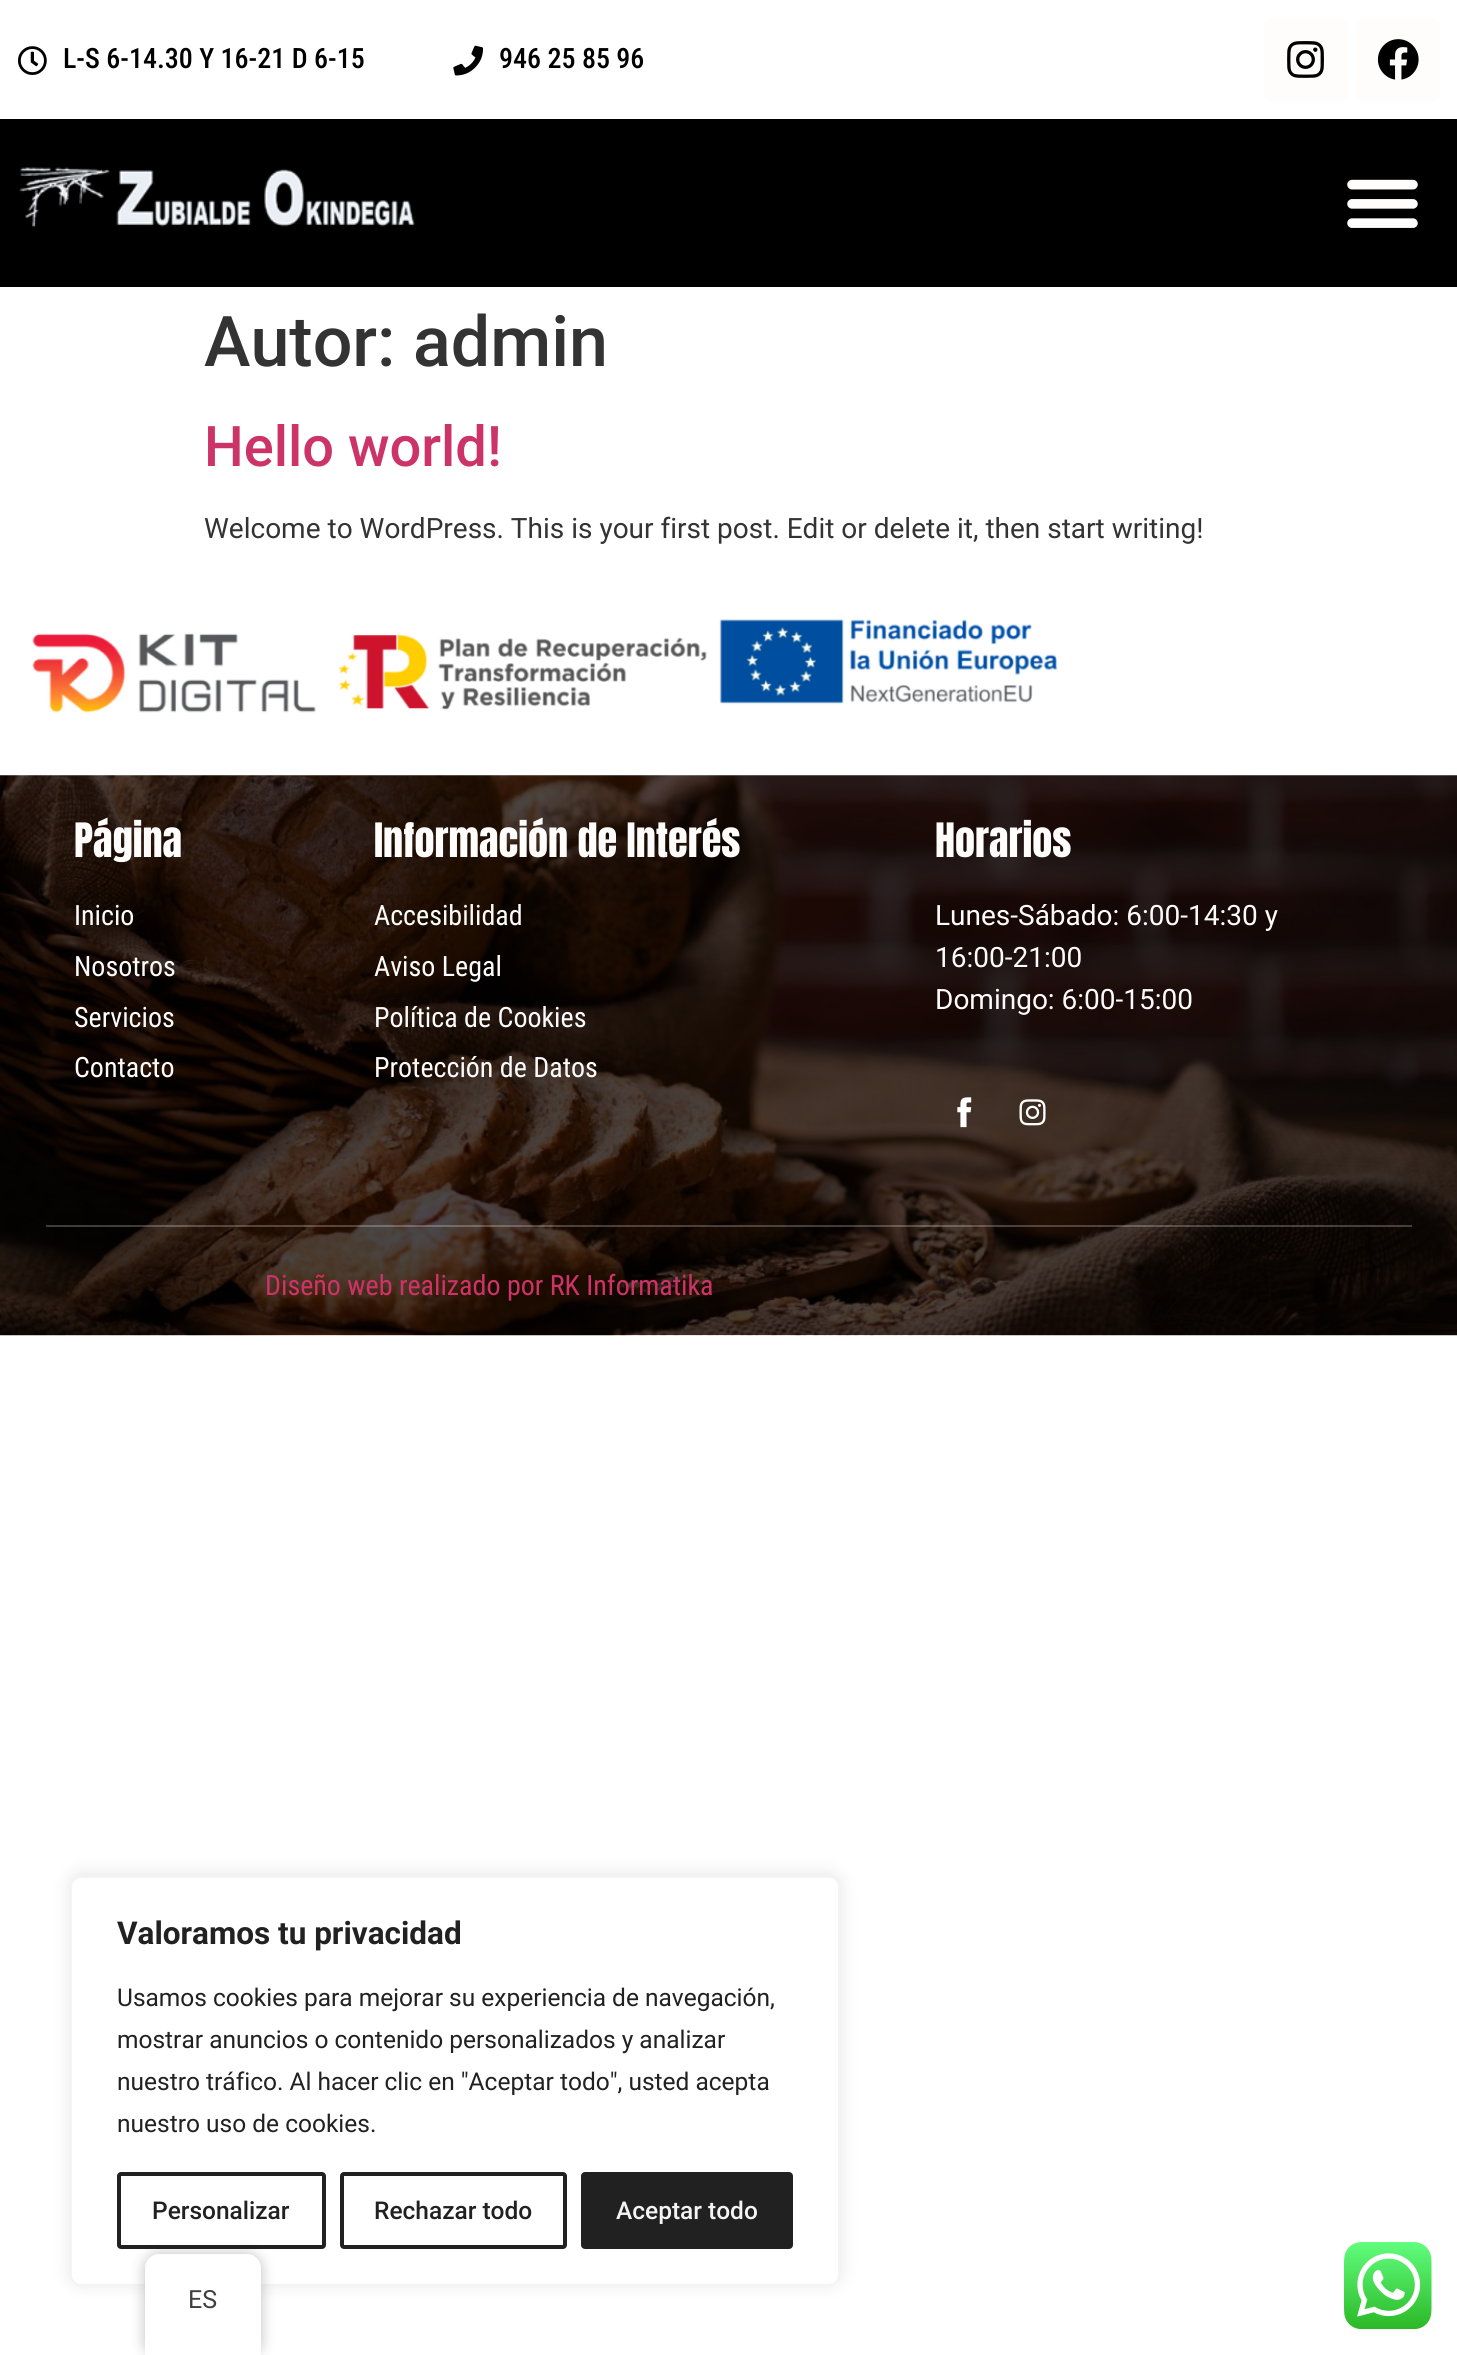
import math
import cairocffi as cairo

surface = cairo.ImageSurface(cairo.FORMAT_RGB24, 1457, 2355)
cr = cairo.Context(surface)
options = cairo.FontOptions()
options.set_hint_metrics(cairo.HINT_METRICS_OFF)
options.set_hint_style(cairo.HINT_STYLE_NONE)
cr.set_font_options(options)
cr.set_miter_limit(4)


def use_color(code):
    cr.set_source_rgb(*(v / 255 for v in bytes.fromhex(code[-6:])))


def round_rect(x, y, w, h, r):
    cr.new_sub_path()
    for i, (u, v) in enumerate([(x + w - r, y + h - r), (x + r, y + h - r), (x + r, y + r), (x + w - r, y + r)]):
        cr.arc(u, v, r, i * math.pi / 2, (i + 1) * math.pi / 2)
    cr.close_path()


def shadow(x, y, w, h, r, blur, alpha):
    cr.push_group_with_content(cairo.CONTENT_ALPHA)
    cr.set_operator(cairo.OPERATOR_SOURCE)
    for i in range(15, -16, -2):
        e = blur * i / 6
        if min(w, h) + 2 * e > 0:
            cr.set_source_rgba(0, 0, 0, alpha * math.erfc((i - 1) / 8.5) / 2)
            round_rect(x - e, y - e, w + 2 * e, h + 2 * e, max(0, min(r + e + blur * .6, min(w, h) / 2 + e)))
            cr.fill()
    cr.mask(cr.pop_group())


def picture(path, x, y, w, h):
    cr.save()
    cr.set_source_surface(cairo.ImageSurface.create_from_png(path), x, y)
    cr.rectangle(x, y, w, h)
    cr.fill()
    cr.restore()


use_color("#ffffff")
cr.paint()
picture("img1.png", 18, 46, 29, 29)
cr.select_font_face("Roboto Condensed Medium")
cr.set_font_size(28)
use_color("#000000")
cr.move_to(63, 68)
cr.show_text("L-S 6-14.30 Y 16-21 D 6-15")
picture("img2.png", 453, 45, 31, 31)
cr.move_to(499, 68)
cr.show_text("946 25 85 96")
use_color("#fffcfc")
round_rect(1264, 18, 84, 84, 9)
cr.fill()
picture("img3.png", 1287, 41, 37, 37)
round_rect(1356, 18, 84, 84, 9)
cr.fill()
picture("img4.png", 1377, 39, 42, 41)
use_color("#000000")
cr.rectangle(0, 119, 1457, 168)
cr.fill()
picture("img5.png", 19, 167, 396, 61)
picture("img6.png", 1347, 179, 71, 49)
cr.select_font_face("Roboto Medium")
cr.set_font_size(70)
use_color("#333333")
cr.move_to(204, 366)
cr.show_text("Autor: admin")
cr.set_font_size(56)
use_color("#cc3366")
cr.move_to(204, 466)
cr.show_text("Hello world!")
cr.select_font_face("Roboto")
cr.set_font_size(28)
use_color("#333333")
cr.move_to(204, 538)
cr.show_text("Welcome to WordPress. This is your first post. Edit or delete it, then start writing!")
picture("img7.png", 32, 619, 1026, 94)
picture("img8.png", 0, 775, 1457, 561)
cr.select_font_face("Anton")
cr.set_font_size(40.25)
use_color("#fffcfc")
cr.move_to(74, 857)
cr.show_text("Página")
cr.select_font_face("Roboto Condensed")
cr.set_font_size(28)
cr.move_to(74, 925)
cr.show_text("Inicio")
cr.move_to(74, 976)
cr.show_text("Nosotros")
cr.move_to(74, 1027)
cr.show_text("Servicios")
cr.move_to(74, 1077)
cr.show_text("Contacto")
cr.select_font_face("Anton")
cr.set_font_size(40.25)
cr.move_to(374, 857)
cr.show_text("Información de Interés")
cr.select_font_face("Roboto Condensed")
cr.set_font_size(28)
cr.move_to(374, 925)
cr.show_text("Accesibilidad")
cr.move_to(374, 976)
cr.show_text("Aviso Legal")
cr.move_to(374, 1027)
cr.show_text("Política de Cookies")
cr.move_to(374, 1077)
cr.show_text("Protección de Datos")
cr.select_font_face("Anton")
cr.set_font_size(40.25)
cr.move_to(935, 857)
cr.show_text("Horarios")
cr.select_font_face("Roboto")
cr.set_font_size(28)
cr.move_to(935, 925)
cr.show_text("Lunes-Sábado: 6:00-14:30 y")
cr.move_to(935, 967)
cr.show_text("16:00-21:00")
cr.move_to(935, 1009)
cr.show_text("Domingo: 6:00-15:00")
picture("img9.png", 957, 1097, 15, 31)
picture("img10.png", 1019, 1099, 27, 27)
cr.set_source_rgba(1, 0.965, 0.945, 0.24)
cr.rectangle(46, 1225, 1366, 2)
cr.fill()
cr.select_font_face("Roboto Condensed")
use_color("#cc3366")
cr.move_to(265, 1295)
cr.show_text("Diseño web realizado por RK Informatika")
use_color("#acabab")
shadow(70, 1874, 770, 410, 11, 9, 0.3)
use_color("#ffffff")
round_rect(71, 1877, 768, 408, 10)
cr.fill_preserve()
use_color("#f4f4f4")
cr.stroke()
cr.select_font_face("Roboto", cairo.FONT_SLANT_NORMAL, cairo.FONT_WEIGHT_BOLD)
cr.set_font_size(31.5)
use_color("#212121")
cr.move_to(117, 1944)
cr.show_text("Valoramos tu privacidad")
cr.select_font_face("Roboto")
cr.set_font_size(24.5)
cr.move_to(117, 2006)
cr.show_text("Usamos cookies para mejorar su experiencia de navegación,")
cr.move_to(117, 2048)
cr.show_text("mostrar anuncios o contenido personalizados y analizar")
cr.move_to(117, 2090)
cr.show_text("nuestro tráfico. Al hacer clic en \"Aceptar todo\", usted acepta")
cr.move_to(117, 2132)
cr.show_text("nuestro uso de cookies.")
round_rect(119, 2174, 205, 73, 2)
cr.set_line_width(4)
cr.stroke()
cr.select_font_face("Roboto Medium")
cr.move_to(152, 2219)
cr.show_text("Personalizar")
round_rect(342, 2174, 223, 73, 2)
cr.stroke()
cr.move_to(374, 2219)
cr.show_text("Rechazar todo")
round_rect(583, 2174, 208, 73, 2)
cr.fill_preserve()
cr.stroke()
use_color("#f4f4f4")
cr.move_to(616, 2219)
cr.show_text("Aceptar todo")
use_color("#000000")
shadow(145, 2254, 116, 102, 14, 7, 0.25)
use_color("#ffffff")
cr.new_path()
cr.move_to(159, 2254)
cr.line_to(247, 2254)
cr.curve_to(254.5, 2254, 261, 2260.5, 261, 2268)
cr.line_to(261, 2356)
cr.line_to(145, 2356)
cr.line_to(145, 2268)
cr.curve_to(145, 2260.5, 151.5, 2254, 159, 2254)
cr.close_path()
cr.fill()
cr.select_font_face("Roboto")
cr.set_font_size(25)
use_color("#404040")
cr.move_to(188, 2308)
cr.show_text("ES")
picture("img11.png", 1344, 2242, 88, 87)
surface.write_to_png("result.png")
